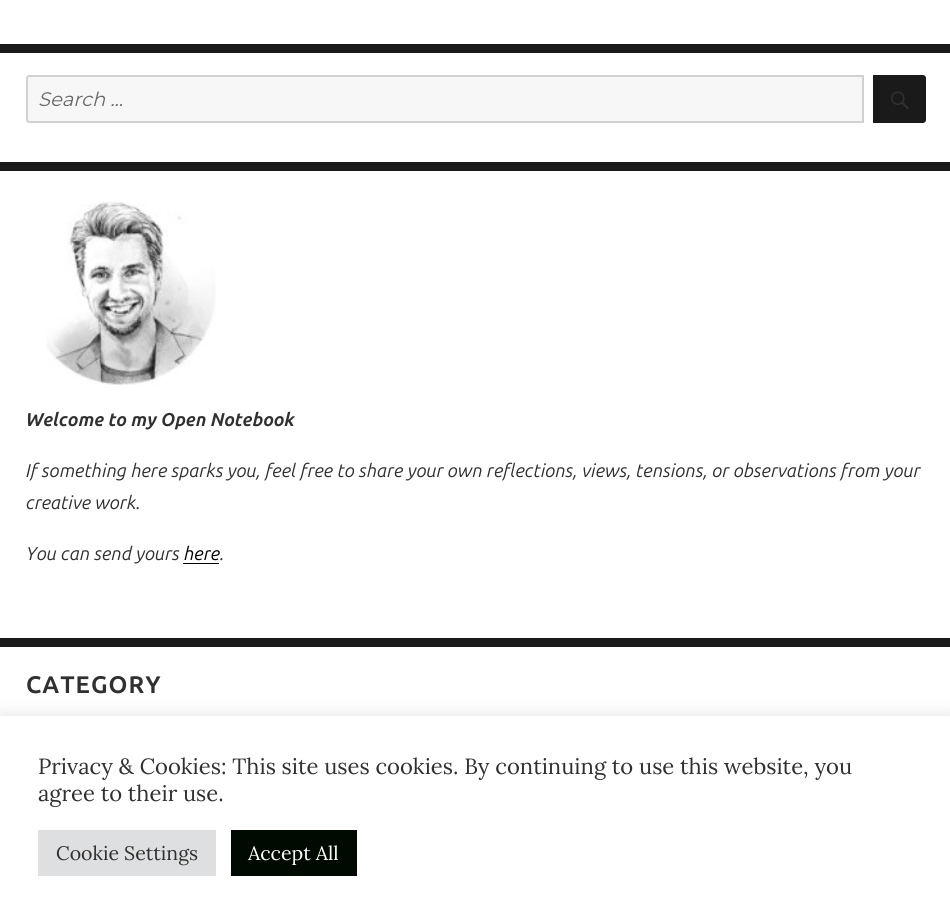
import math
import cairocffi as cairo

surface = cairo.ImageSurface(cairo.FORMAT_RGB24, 950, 920)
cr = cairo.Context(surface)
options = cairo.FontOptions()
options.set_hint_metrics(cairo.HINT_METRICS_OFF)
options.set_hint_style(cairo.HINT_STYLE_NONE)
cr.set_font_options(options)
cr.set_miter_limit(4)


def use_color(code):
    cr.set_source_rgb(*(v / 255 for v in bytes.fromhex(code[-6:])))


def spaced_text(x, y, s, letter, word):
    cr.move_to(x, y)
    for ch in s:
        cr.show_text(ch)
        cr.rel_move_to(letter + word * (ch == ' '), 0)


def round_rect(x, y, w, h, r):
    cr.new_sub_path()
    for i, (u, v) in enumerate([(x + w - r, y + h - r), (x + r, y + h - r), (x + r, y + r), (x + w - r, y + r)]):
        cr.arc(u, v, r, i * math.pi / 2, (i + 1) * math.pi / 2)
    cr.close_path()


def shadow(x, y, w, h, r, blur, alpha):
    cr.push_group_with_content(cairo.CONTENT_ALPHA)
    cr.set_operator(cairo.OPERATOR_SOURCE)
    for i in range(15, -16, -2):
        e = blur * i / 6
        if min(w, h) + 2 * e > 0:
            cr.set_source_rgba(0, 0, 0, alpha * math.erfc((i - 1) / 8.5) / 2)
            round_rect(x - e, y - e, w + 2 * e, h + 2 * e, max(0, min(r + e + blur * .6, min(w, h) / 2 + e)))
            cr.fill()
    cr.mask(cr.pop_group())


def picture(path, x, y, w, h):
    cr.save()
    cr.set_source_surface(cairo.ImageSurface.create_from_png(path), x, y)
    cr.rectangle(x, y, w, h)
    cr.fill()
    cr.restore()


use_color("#ffffff")
cr.paint()
use_color("#1a1a1a")
cr.rectangle(0, 44, 950, 9)
cr.fill()
use_color("#f7f7f7")
cr.new_path()
cr.move_to(29, 76)
cr.line_to(863, 76)
cr.line_to(863, 122)
cr.line_to(29, 122)
cr.curve_to(28, 122, 27, 121, 27, 120)
cr.line_to(27, 78)
cr.curve_to(27, 77, 28, 76, 29, 76)
cr.close_path()
cr.fill_preserve()
use_color("#d1d1d1")
cr.stroke()
cr.select_font_face("Montserrat", cairo.FONT_SLANT_ITALIC)
cr.set_font_size(19.5)
use_color("#686868")
cr.move_to(38, 106)
cr.show_text("Search …")
use_color("#1a1a1a")
cr.new_path()
cr.move_to(873, 75)
cr.line_to(923, 75)
cr.curve_to(924.5, 75, 926, 76.5, 926, 78)
cr.line_to(926, 120)
cr.curve_to(926, 121.5, 924.5, 123, 923, 123)
cr.line_to(873, 123)
cr.close_path()
cr.fill()
picture("img1.png", 891, 91, 18, 19)
cr.rectangle(0, 162, 950, 9)
cr.fill()
picture("img2.png", 46, 201, 170, 185)
cr.select_font_face("Ubuntu", cairo.FONT_SLANT_ITALIC, cairo.FONT_WEIGHT_BOLD)
cr.set_font_size(18.5)
use_color("#303030")
cr.move_to(26, 426)
cr.show_text("Welcome to my Open Notebook")
cr.select_font_face("Ubuntu", cairo.FONT_SLANT_ITALIC)
cr.move_to(26, 477)
cr.show_text("If something here sparks you, feel free to share your own reflections, views, tensions, or observations from your")
cr.move_to(26, 509)
cr.show_text("creative work.")
cr.move_to(26, 560)
cr.show_text("You can send yours")
use_color("#000000")
cr.move_to(184, 560)
cr.show_text("here")
cr.rectangle(183, 563, 36, 1)
cr.fill()
use_color("#303030")
cr.move_to(220, 560)
cr.show_text(".")
use_color("#1a1a1a")
cr.rectangle(0, 638, 950, 9)
cr.fill()
cr.select_font_face("Ubuntu", cairo.FONT_SLANT_NORMAL, cairo.FONT_WEIGHT_BOLD)
cr.set_font_size(24)
use_color("#303030")
spaced_text(26, 693, "CATEGORY", 1, 0)
use_color("#acabab")
shadow(0, 714, 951, 206, 0, 7.5, 0.3)
use_color("#ffffff")
cr.rectangle(0, 716, 950, 204)
cr.fill()
cr.select_font_face("Lora")
cr.set_font_size(22)
use_color("#303030")
cr.move_to(38, 774)
cr.show_text("Privacy & Cookies: This site uses cookies. By continuing to use this website, you")
cr.move_to(38, 801)
cr.show_text("agree to their use.")
use_color("#dedfe0")
cr.rectangle(38, 830, 178, 46)
cr.fill()
cr.set_font_size(19.5)
use_color("#303030")
cr.move_to(56, 860)
cr.show_text("Cookie Settings")
use_color("#010a01")
cr.rectangle(231, 830, 126, 46)
cr.fill()
use_color("#ffffff")
cr.move_to(248, 860)
cr.show_text("Accept All")
surface.write_to_png("result.png")
